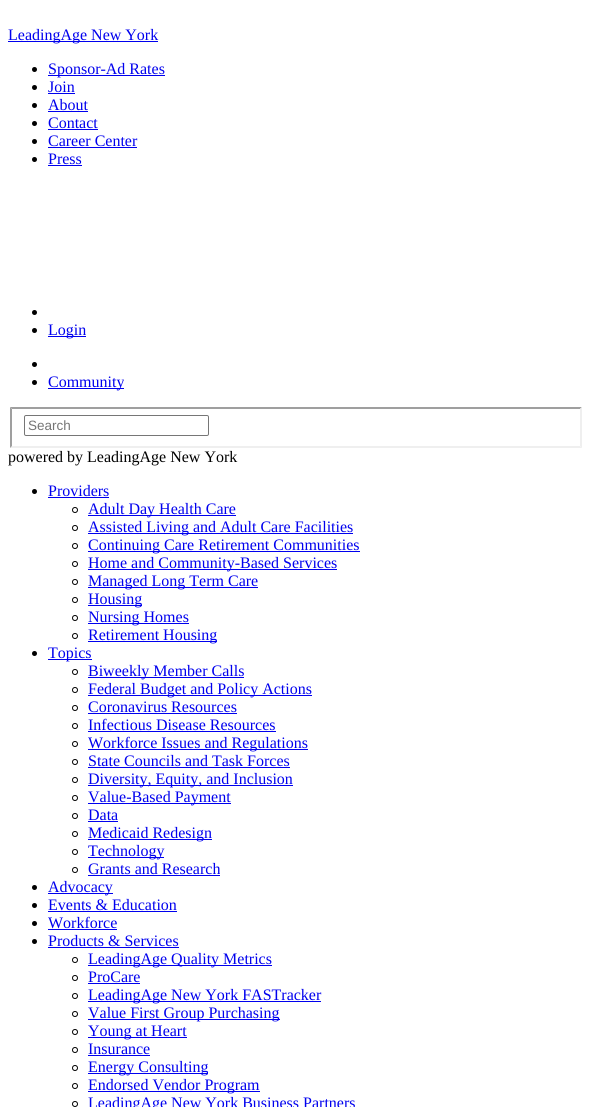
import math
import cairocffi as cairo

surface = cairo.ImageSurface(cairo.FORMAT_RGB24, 592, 1107)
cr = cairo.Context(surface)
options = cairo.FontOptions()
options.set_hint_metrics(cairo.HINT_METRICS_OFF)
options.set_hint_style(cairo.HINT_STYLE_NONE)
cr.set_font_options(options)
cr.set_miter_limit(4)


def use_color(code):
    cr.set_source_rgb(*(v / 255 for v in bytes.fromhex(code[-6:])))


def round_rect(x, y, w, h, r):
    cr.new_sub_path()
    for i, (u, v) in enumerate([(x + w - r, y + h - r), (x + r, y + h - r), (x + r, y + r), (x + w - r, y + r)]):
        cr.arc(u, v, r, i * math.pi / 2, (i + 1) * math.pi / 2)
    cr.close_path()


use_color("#ffffff")
cr.paint()
use_color("#0000ee")
cr.rectangle(8, 41, 150, 1)
cr.fill()
cr.select_font_face("Liberation Serif")
cr.set_font_size(16)
cr.move_to(8, 40)
cr.show_text("LeadingAge New York")
use_color("#000000")
cr.new_path()
cr.arc(34.5, 69.5, 2.5, 0, 2 * math.pi)
cr.fill()
use_color("#0000ee")
cr.rectangle(48, 75, 117, 1)
cr.fill()
cr.move_to(48, 74)
cr.show_text("Sponsor-Ad Rates")
use_color("#000000")
cr.new_path()
cr.arc(34.5, 87.5, 2.5, 0, 2 * math.pi)
cr.fill()
use_color("#0000ee")
cr.move_to(48, 92)
cr.show_text("Join")
cr.rectangle(48, 93, 27, 1)
cr.fill()
use_color("#000000")
cr.arc(34.5, 105.5, 2.5, 0, 2 * math.pi)
cr.fill()
use_color("#0000ee")
cr.move_to(48, 110)
cr.show_text("About")
cr.rectangle(48, 111, 40, 1)
cr.fill()
use_color("#000000")
cr.arc(34.5, 123.5, 2.5, 0, 2 * math.pi)
cr.fill()
use_color("#0000ee")
cr.move_to(48, 128)
cr.show_text("Contact")
cr.rectangle(48, 129, 50, 1)
cr.fill()
use_color("#000000")
cr.arc(34.5, 141.5, 2.5, 0, 2 * math.pi)
cr.fill()
use_color("#0000ee")
cr.move_to(48, 146)
cr.show_text("Career Center")
cr.rectangle(48, 147, 89, 1)
cr.fill()
use_color("#000000")
cr.arc(34.5, 159.5, 2.5, 0, 2 * math.pi)
cr.fill()
use_color("#0000ee")
cr.move_to(48, 164)
cr.show_text("Press")
cr.rectangle(48, 165, 34, 1)
cr.fill()
use_color("#000000")
cr.arc(34.5, 312.5, 2.5, 0, 2 * math.pi)
cr.fill()
cr.arc(34.5, 330.5, 2.5, 0, 2 * math.pi)
cr.fill()
use_color("#0000ee")
cr.rectangle(48, 336, 38, 1)
cr.fill()
cr.move_to(48, 335)
cr.show_text("Login")
use_color("#000000")
cr.new_path()
cr.arc(34.5, 364.5, 2.5, 0, 2 * math.pi)
cr.fill()
cr.arc(34.5, 382.5, 2.5, 0, 2 * math.pi)
cr.fill()
use_color("#0000ee")
cr.rectangle(48, 388, 76, 1)
cr.fill()
cr.move_to(48, 387)
cr.show_text("Community")
use_color("#9f9f9f")
cr.new_path()
cr.move_to(10, 407)
cr.line_to(582, 407)
cr.line_to(580, 409)
cr.line_to(12, 409)
cr.close_path()
cr.fill()
use_color("#efefef")
cr.new_path()
cr.move_to(582, 407)
cr.line_to(582, 448)
cr.line_to(580, 446)
cr.line_to(580, 409)
cr.close_path()
cr.fill()
cr.new_path()
cr.move_to(582, 448)
cr.line_to(10, 448)
cr.line_to(12, 446)
cr.line_to(580, 446)
cr.close_path()
cr.fill()
use_color("#9f9f9f")
cr.new_path()
cr.move_to(10, 448)
cr.line_to(10, 407)
cr.line_to(12, 409)
cr.line_to(12, 446)
cr.close_path()
cr.fill()
round_rect(24.5, 415.5, 184, 20, 1.5)
use_color("#767676")
cr.set_line_width(1)
cr.stroke()
cr.select_font_face("Liberation Sans")
cr.set_font_size(13.5)
use_color("#757575")
cr.move_to(28, 430)
cr.show_text("Search")
cr.select_font_face("Liberation Serif")
cr.set_font_size(16)
use_color("#000000")
cr.move_to(8, 462)
cr.show_text("powered by LeadingAge New York")
cr.new_path()
cr.arc(34.5, 491.5, 2.5, 0, 2 * math.pi)
cr.fill()
use_color("#0000ee")
cr.move_to(48, 496)
cr.show_text("Providers")
cr.rectangle(48, 497, 61, 1)
cr.fill()
cr.arc(75, 510, 2.5, 0, 2 * math.pi)
use_color("#000000")
cr.stroke()
use_color("#0000ee")
cr.rectangle(88, 515, 148, 1)
cr.fill()
cr.move_to(88, 514)
cr.show_text("Adult Day Health Care")
cr.new_path()
cr.arc(75, 528, 2.5, 0, 2 * math.pi)
use_color("#000000")
cr.stroke()
use_color("#0000ee")
cr.rectangle(88, 533, 265, 1)
cr.fill()
cr.move_to(88, 532)
cr.show_text("Assisted Living and Adult Care Facilities")
cr.new_path()
cr.arc(75, 546, 2.5, 0, 2 * math.pi)
use_color("#000000")
cr.stroke()
use_color("#0000ee")
cr.rectangle(88, 551, 272, 1)
cr.fill()
cr.move_to(88, 550)
cr.show_text("Continuing Care Retirement Communities")
cr.new_path()
cr.arc(75, 564, 2.5, 0, 2 * math.pi)
use_color("#000000")
cr.stroke()
use_color("#0000ee")
cr.rectangle(88, 569, 249, 1)
cr.fill()
cr.move_to(88, 568)
cr.show_text("Home and Community-Based Services")
cr.new_path()
cr.arc(75, 582, 2.5, 0, 2 * math.pi)
use_color("#000000")
cr.stroke()
use_color("#0000ee")
cr.rectangle(88, 587, 170, 1)
cr.fill()
cr.move_to(88, 586)
cr.show_text("Managed Long Term Care")
cr.new_path()
cr.arc(75, 600, 2.5, 0, 2 * math.pi)
use_color("#000000")
cr.stroke()
use_color("#0000ee")
cr.rectangle(88, 605, 54, 1)
cr.fill()
cr.move_to(88, 604)
cr.show_text("Housing")
cr.new_path()
cr.arc(75, 618, 2.5, 0, 2 * math.pi)
use_color("#000000")
cr.stroke()
use_color("#0000ee")
cr.rectangle(88, 623, 101, 1)
cr.fill()
cr.move_to(88, 622)
cr.show_text("Nursing Homes")
cr.new_path()
cr.arc(75, 636, 2.5, 0, 2 * math.pi)
use_color("#000000")
cr.stroke()
use_color("#0000ee")
cr.rectangle(88, 641, 129, 1)
cr.fill()
cr.move_to(88, 640)
cr.show_text("Retirement Housing")
use_color("#000000")
cr.new_path()
cr.arc(34.5, 653.5, 2.5, 0, 2 * math.pi)
cr.fill()
use_color("#0000ee")
cr.rectangle(48, 659, 44, 1)
cr.fill()
cr.move_to(48, 658)
cr.show_text("Topics")
cr.new_path()
cr.arc(75, 672, 2.5, 0, 2 * math.pi)
use_color("#000000")
cr.stroke()
use_color("#0000ee")
cr.rectangle(88, 677, 156, 1)
cr.fill()
cr.move_to(88, 676)
cr.show_text("Biweekly Member Calls")
cr.new_path()
cr.arc(75, 690, 2.5, 0, 2 * math.pi)
use_color("#000000")
cr.stroke()
use_color("#0000ee")
cr.rectangle(88, 695, 224, 1)
cr.fill()
cr.move_to(88, 694)
cr.show_text("Federal Budget and Policy Actions")
cr.new_path()
cr.arc(75, 708, 2.5, 0, 2 * math.pi)
use_color("#000000")
cr.stroke()
use_color("#0000ee")
cr.move_to(88, 712)
cr.show_text("Coronavirus Resources")
cr.rectangle(88, 713, 149, 1)
cr.fill()
cr.arc(75, 726, 2.5, 0, 2 * math.pi)
use_color("#000000")
cr.stroke()
use_color("#0000ee")
cr.move_to(88, 730)
cr.show_text("Infectious Disease Resources")
cr.rectangle(88, 731, 188, 1)
cr.fill()
cr.arc(75, 744, 2.5, 0, 2 * math.pi)
use_color("#000000")
cr.stroke()
use_color("#0000ee")
cr.rectangle(88, 749, 220, 1)
cr.fill()
cr.move_to(88, 748)
cr.show_text("Workforce Issues and Regulations")
cr.new_path()
cr.arc(75, 762, 2.5, 0, 2 * math.pi)
use_color("#000000")
cr.stroke()
use_color("#0000ee")
cr.move_to(88, 766)
cr.show_text("State Councils and Task Forces")
cr.rectangle(88, 767, 202, 1)
cr.fill()
cr.arc(75, 780, 2.5, 0, 2 * math.pi)
use_color("#000000")
cr.stroke()
use_color("#0000ee")
cr.rectangle(88, 785, 205, 1)
cr.fill()
cr.move_to(88, 784)
cr.show_text("Diversity, Equity, and Inclusion")
cr.new_path()
cr.arc(75, 798, 2.5, 0, 2 * math.pi)
use_color("#000000")
cr.stroke()
use_color("#0000ee")
cr.rectangle(88, 803, 143, 1)
cr.fill()
cr.move_to(88, 802)
cr.show_text("Value-Based Payment")
cr.new_path()
cr.arc(75, 816, 2.5, 0, 2 * math.pi)
use_color("#000000")
cr.stroke()
use_color("#0000ee")
cr.move_to(88, 820)
cr.show_text("Data")
cr.rectangle(88, 821, 30, 1)
cr.fill()
cr.arc(75, 834, 2.5, 0, 2 * math.pi)
use_color("#000000")
cr.stroke()
use_color("#0000ee")
cr.rectangle(88, 839, 124, 1)
cr.fill()
cr.move_to(88, 838)
cr.show_text("Medicaid Redesign")
cr.new_path()
cr.arc(75, 852, 2.5, 0, 2 * math.pi)
use_color("#000000")
cr.stroke()
use_color("#0000ee")
cr.rectangle(88, 857, 76, 1)
cr.fill()
cr.move_to(88, 856)
cr.show_text("Technology")
cr.new_path()
cr.arc(75, 870, 2.5, 0, 2 * math.pi)
use_color("#000000")
cr.stroke()
use_color("#0000ee")
cr.move_to(88, 874)
cr.show_text("Grants and Research")
cr.rectangle(88, 875, 132, 1)
cr.fill()
use_color("#000000")
cr.arc(34.5, 887.5, 2.5, 0, 2 * math.pi)
cr.fill()
use_color("#0000ee")
cr.rectangle(48, 893, 65, 1)
cr.fill()
cr.move_to(48, 892)
cr.show_text("Advocacy")
use_color("#000000")
cr.new_path()
cr.arc(34.5, 905.5, 2.5, 0, 2 * math.pi)
cr.fill()
use_color("#0000ee")
cr.move_to(48, 910)
cr.show_text("Events & Education")
cr.rectangle(48, 911, 129, 1)
cr.fill()
use_color("#000000")
cr.arc(34.5, 923.5, 2.5, 0, 2 * math.pi)
cr.fill()
use_color("#0000ee")
cr.move_to(48, 928)
cr.show_text("Workforce")
cr.rectangle(48, 929, 69, 1)
cr.fill()
use_color("#000000")
cr.arc(34.5, 941.5, 2.5, 0, 2 * math.pi)
cr.fill()
use_color("#0000ee")
cr.move_to(48, 946)
cr.show_text("Products & Services")
cr.rectangle(48, 947, 131, 1)
cr.fill()
cr.arc(75, 960, 2.5, 0, 2 * math.pi)
use_color("#000000")
cr.stroke()
use_color("#0000ee")
cr.rectangle(88, 965, 184, 1)
cr.fill()
cr.move_to(88, 964)
cr.show_text("LeadingAge Quality Metrics")
cr.new_path()
cr.arc(75, 978, 2.5, 0, 2 * math.pi)
use_color("#000000")
cr.stroke()
use_color("#0000ee")
cr.move_to(88, 982)
cr.show_text("ProCare")
cr.rectangle(88, 983, 52, 1)
cr.fill()
cr.arc(75, 996, 2.5, 0, 2 * math.pi)
use_color("#000000")
cr.stroke()
use_color("#0000ee")
cr.rectangle(88, 1001, 233, 1)
cr.fill()
cr.move_to(88, 1000)
cr.show_text("LeadingAge New York FASTracker")
cr.new_path()
cr.arc(75, 1014, 2.5, 0, 2 * math.pi)
use_color("#000000")
cr.stroke()
use_color("#0000ee")
cr.rectangle(88, 1019, 192, 1)
cr.fill()
cr.move_to(88, 1018)
cr.show_text("Value First Group Purchasing")
cr.new_path()
cr.arc(75, 1032, 2.5, 0, 2 * math.pi)
use_color("#000000")
cr.stroke()
use_color("#0000ee")
cr.rectangle(88, 1037, 99, 1)
cr.fill()
cr.move_to(88, 1036)
cr.show_text("Young at Heart")
cr.new_path()
cr.arc(75, 1050, 2.5, 0, 2 * math.pi)
use_color("#000000")
cr.stroke()
use_color("#0000ee")
cr.move_to(88, 1054)
cr.show_text("Insurance")
cr.rectangle(88, 1055, 62, 1)
cr.fill()
cr.arc(75, 1068, 2.5, 0, 2 * math.pi)
use_color("#000000")
cr.stroke()
use_color("#0000ee")
cr.rectangle(88, 1073, 120, 1)
cr.fill()
cr.move_to(88, 1072)
cr.show_text("Energy Consulting")
cr.new_path()
cr.arc(75, 1086, 2.5, 0, 2 * math.pi)
use_color("#000000")
cr.stroke()
use_color("#0000ee")
cr.rectangle(88, 1091, 172, 1)
cr.fill()
cr.move_to(88, 1090)
cr.show_text("Endorsed Vendor Program")
cr.new_path()
cr.arc(75, 1104, 2.5, 0, 2 * math.pi)
use_color("#000000")
cr.stroke()
use_color("#0000ee")
cr.move_to(88, 1108)
cr.show_text("LeadingAge New York Business Partners")
surface.write_to_png("result.png")
